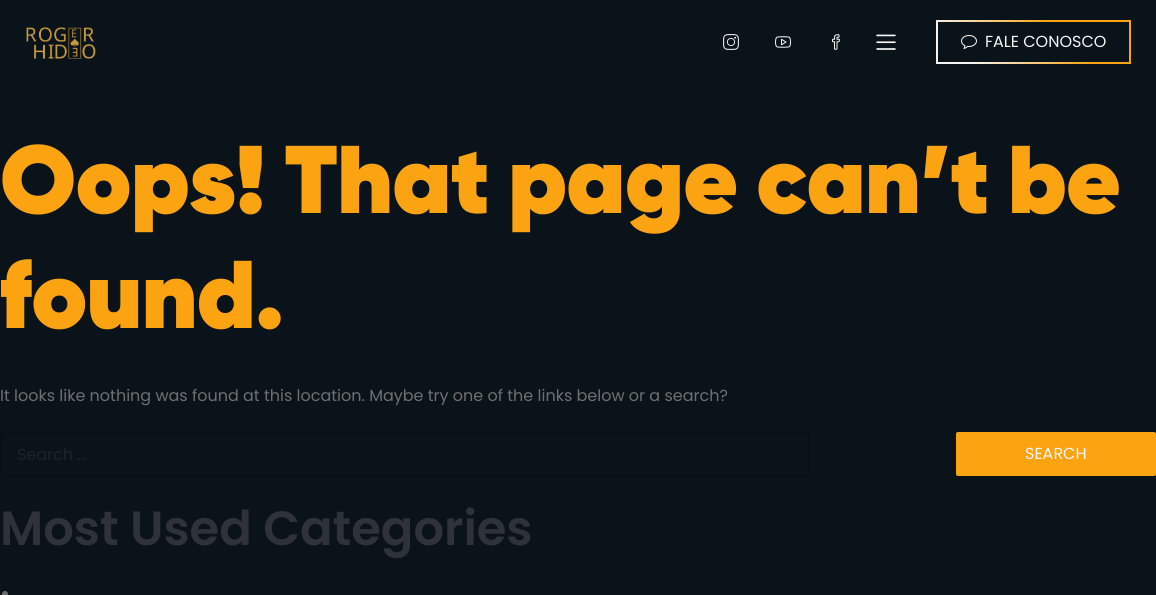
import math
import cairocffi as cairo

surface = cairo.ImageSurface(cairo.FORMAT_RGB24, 1156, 595)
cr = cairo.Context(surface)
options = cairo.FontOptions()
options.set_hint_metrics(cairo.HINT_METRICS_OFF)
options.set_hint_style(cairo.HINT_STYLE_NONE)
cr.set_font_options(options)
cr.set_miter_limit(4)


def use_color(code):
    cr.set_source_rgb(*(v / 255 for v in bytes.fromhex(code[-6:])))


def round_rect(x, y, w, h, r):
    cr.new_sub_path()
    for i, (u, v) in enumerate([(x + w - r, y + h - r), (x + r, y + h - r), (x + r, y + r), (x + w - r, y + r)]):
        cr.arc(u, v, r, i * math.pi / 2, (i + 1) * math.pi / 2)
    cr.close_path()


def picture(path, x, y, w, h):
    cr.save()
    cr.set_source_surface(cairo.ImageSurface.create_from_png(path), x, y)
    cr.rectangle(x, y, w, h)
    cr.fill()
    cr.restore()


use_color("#0a131a")
cr.paint()
picture("img1.png", 26, 27, 70, 32)
picture("img2.png", 723, 34, 16, 16)
picture("img3.png", 775, 36, 16, 12)
picture("img4.png", 832, 34, 8, 16)
picture("img5.png", 876, 34, 20, 16)
gradient = cairo.LinearGradient(974, 102, 1093, -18)
gradient.add_color_stop_rgba(0.15, 0.961, 0.961, 0.961, 1)
gradient.add_color_stop_rgba(0.65, 0.988, 0.639, 0.067, 1)
cr.set_source(gradient)
cr.rectangle(936, 20, 195, 44)
cr.fill()
use_color("#0a131a")
cr.rectangle(938, 22, 191, 40)
cr.fill()
picture("img6.png", 961, 35, 16, 14)
cr.select_font_face("Poppins")
cr.set_font_size(16)
use_color("#f5f5f5")
cr.move_to(985, 47)
cr.show_text("FALE CONOSCO")
cr.select_font_face("Gilroy Black")
cr.set_font_size(96)
use_color("#fca311")
cr.move_to(0, 213)
cr.show_text("Oops! That page can’t be")
cr.move_to(0, 328)
cr.show_text("found.")
cr.select_font_face("Poppins")
cr.set_font_size(16)
use_color("#6f6f6f")
cr.move_to(0, 401)
cr.show_text("It looks like nothing was found at this location. Maybe try one of the links below or a search?")
round_rect(0.5, 432.5, 808, 43, 1.5)
use_color("#080e14")
cr.set_line_width(1)
cr.stroke()
use_color("#1d232a")
cr.move_to(17, 460)
cr.show_text("Search …")
use_color("#fca311")
round_rect(956.5, 432.5, 199, 43, 1.5)
cr.fill_preserve()
cr.stroke()
use_color("#f5f5f5")
cr.move_to(1025, 459)
cr.show_text("SEARCH")
cr.select_font_face("Poppins SemiBold")
cr.set_font_size(48)
use_color("#2f323a")
cr.move_to(0, 545)
cr.show_text("Most Used Categories")
use_color("#6f6f6f")
cr.new_path()
cr.arc(5, 594, 3, 0, 2 * math.pi)
cr.fill()
surface.write_to_png("result.png")
